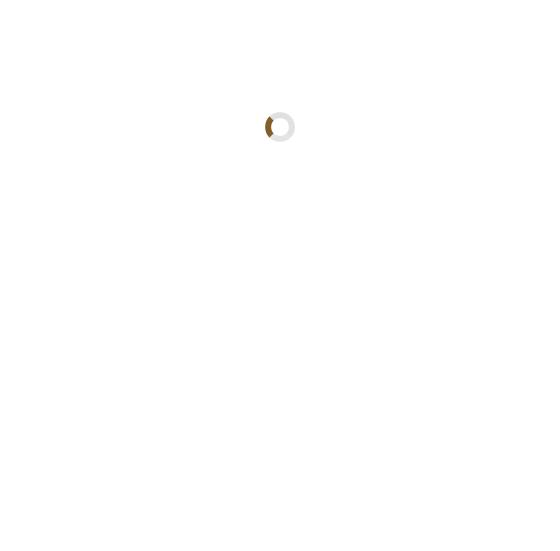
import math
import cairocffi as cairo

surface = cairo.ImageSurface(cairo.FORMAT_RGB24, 560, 551)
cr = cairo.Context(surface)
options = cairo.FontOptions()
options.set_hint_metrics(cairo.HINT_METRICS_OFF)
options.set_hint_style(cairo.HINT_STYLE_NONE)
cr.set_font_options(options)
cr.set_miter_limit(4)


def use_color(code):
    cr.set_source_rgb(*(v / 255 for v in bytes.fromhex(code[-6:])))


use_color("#ffffff")
cr.paint()
cr.new_path()
cr.move_to(271.5, 118.5)
cr.curve_to(276, 114, 284, 114, 288.5, 118.5)
use_color("#e1e0e0")
cr.set_line_width(6)
cr.stroke()
cr.new_path()
cr.move_to(288.5, 118.5)
cr.curve_to(293, 123, 293, 131, 288.5, 135.5)
cr.set_source_rgba(0.78, 0.773, 0.773, 0.5)
cr.stroke()
cr.new_path()
cr.move_to(288.5, 135.5)
cr.curve_to(284, 140, 276, 140, 271.5, 135.5)
cr.set_source_rgba(0.796, 0.796, 0.796, 0.5)
cr.stroke()
cr.new_path()
cr.move_to(271.5, 135.5)
cr.curve_to(267, 131, 267, 123, 271.5, 118.5)
use_color("#835e2a")
cr.stroke()
surface.write_to_png("result.png")
